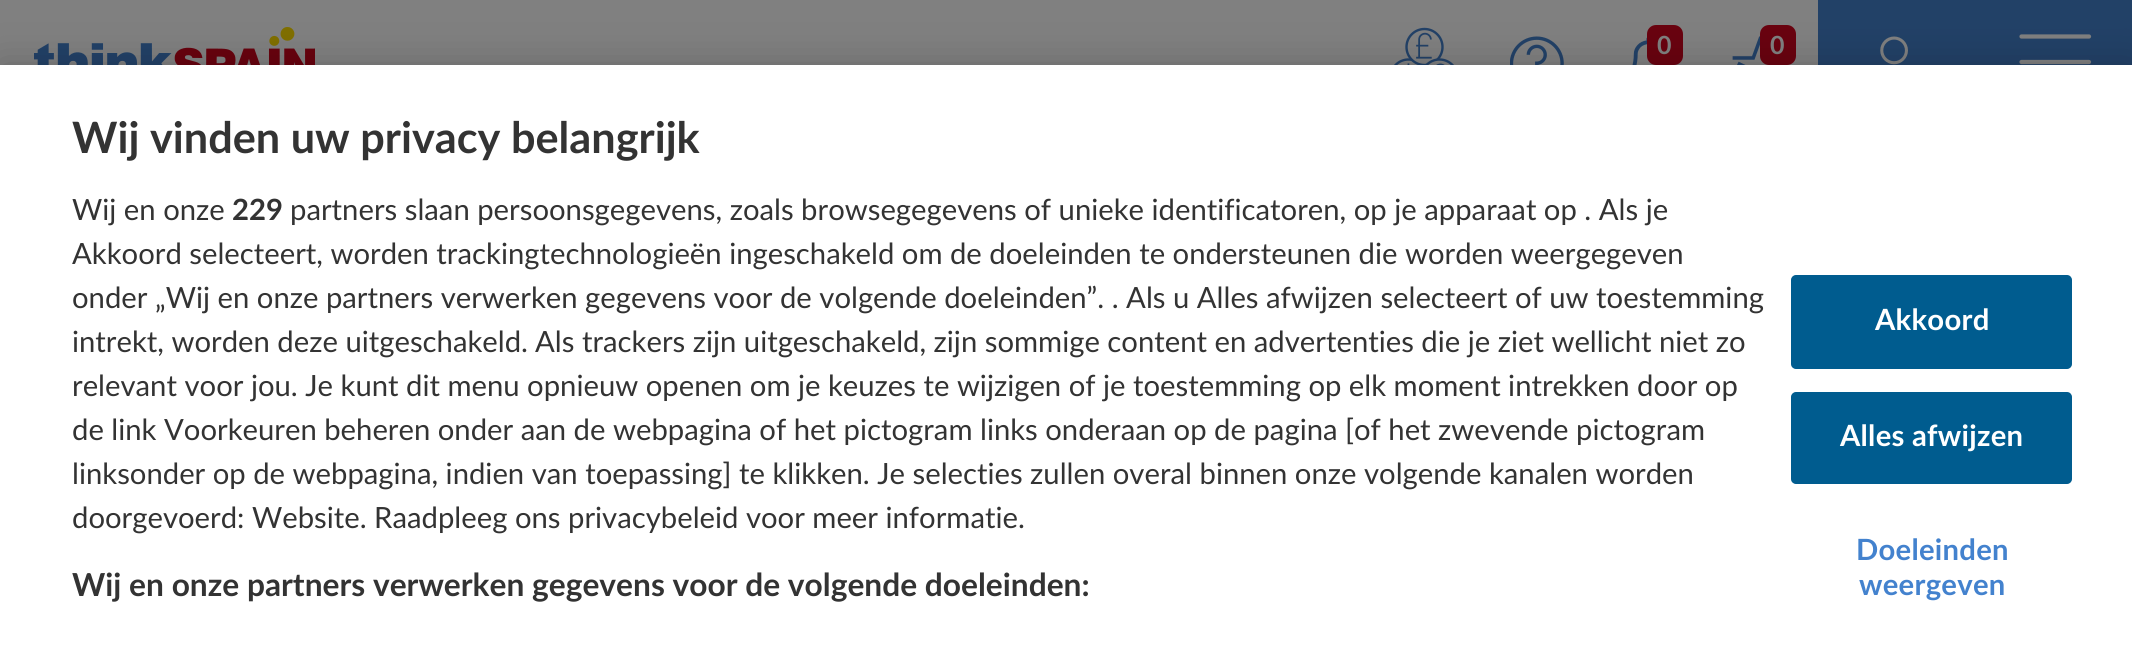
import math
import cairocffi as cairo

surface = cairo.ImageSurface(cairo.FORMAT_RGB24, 2132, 652)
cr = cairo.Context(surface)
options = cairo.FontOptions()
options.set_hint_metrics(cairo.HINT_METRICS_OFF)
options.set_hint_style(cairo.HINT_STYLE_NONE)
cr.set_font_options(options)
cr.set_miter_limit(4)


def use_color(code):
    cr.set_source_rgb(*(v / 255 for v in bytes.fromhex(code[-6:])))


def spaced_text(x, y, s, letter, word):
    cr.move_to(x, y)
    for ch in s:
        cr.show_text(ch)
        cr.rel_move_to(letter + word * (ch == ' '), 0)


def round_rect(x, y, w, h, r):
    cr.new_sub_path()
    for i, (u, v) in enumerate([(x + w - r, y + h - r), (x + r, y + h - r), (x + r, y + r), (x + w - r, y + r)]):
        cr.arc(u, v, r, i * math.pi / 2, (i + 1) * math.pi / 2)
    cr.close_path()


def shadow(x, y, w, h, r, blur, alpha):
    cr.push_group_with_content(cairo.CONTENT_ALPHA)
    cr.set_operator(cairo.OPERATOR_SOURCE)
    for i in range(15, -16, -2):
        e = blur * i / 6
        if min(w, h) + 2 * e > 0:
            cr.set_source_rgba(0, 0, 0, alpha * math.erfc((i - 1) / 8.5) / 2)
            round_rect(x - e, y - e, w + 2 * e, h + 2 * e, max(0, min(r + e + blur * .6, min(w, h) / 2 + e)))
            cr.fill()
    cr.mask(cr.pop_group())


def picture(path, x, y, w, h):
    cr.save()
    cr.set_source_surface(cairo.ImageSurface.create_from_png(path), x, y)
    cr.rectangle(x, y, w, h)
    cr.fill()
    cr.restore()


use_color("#808080")
cr.paint()
picture("img1.png", 34, 27, 281, 38)
picture("img2.png", 1394, 27, 60, 38)
use_color("#224167")
cr.rectangle(1818, 0, 314, 65)
cr.fill()
picture("img3.png", 1880, 36, 28, 29)
picture("img4.png", 1510, 36, 54, 29)
picture("img5.png", 1632, 37, 15, 28)
use_color("#69020f")
round_rect(1647, 25, 36, 40, 9)
cr.fill()
cr.select_font_face("Lato", cairo.FONT_SLANT_NORMAL, cairo.FONT_WEIGHT_BOLD)
cr.set_font_size(25)
use_color("#808080")
cr.move_to(1657, 54)
cr.show_text("0")
picture("img6.png", 1732, 36, 28, 29)
use_color("#69020f")
round_rect(1760, 25, 36, 40, 9)
cr.fill()
use_color("#808080")
cr.move_to(1770, 54)
cr.show_text("0")
cr.new_path()
cr.move_to(2021.5, 87)
cr.line_to(2089, 87)
cr.move_to(2021.5, 62)
cr.line_to(2089, 62)
cr.move_to(2021.5, 36.5)
cr.line_to(2089, 36.5)
cr.set_line_width(4.2)
cr.set_line_cap(cairo.LINE_CAP_ROUND)
cr.stroke()
use_color("#000000")
shadow(0, 65, 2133, 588, 0, 20, 0.2)
use_color("#ffffff")
cr.rectangle(0, 65, 2132, 587)
cr.fill()
cr.set_font_size(43.25)
use_color("#333333")
cr.move_to(72, 153)
cr.show_text("Wij vinden uw privacy belangrijk")
cr.select_font_face("Lato")
cr.set_font_size(29.27)
cr.move_to(72, 220)
cr.show_text("Wij en onze")
cr.select_font_face("Lato", cairo.FONT_SLANT_NORMAL, cairo.FONT_WEIGHT_BOLD)
cr.move_to(232, 220)
cr.show_text("229")
cr.select_font_face("Lato")
cr.move_to(290, 220)
cr.show_text("partners slaan persoonsgegevens, zoals browsegegevens of unieke identificatoren, op je apparaat op . Als je")
cr.move_to(72, 264)
cr.show_text("Akkoord selecteert, worden trackingtechnologieën ingeschakeld om de doeleinden te ondersteunen die worden weergegeven")
cr.move_to(72, 308)
cr.show_text("onder „Wij en onze partners verwerken gegevens voor de volgende doeleinden”. . Als u Alles afwijzen selecteert of uw toestemming")
cr.move_to(72, 352)
cr.show_text("intrekt, worden deze uitgeschakeld.")
cr.move_to(535, 352)
cr.show_text("Als trackers zijn uitgeschakeld, zijn sommige content en advertenties die je ziet wellicht niet zo")
cr.move_to(72, 396)
cr.show_text("relevant voor jou. Je kunt dit menu opnieuw openen om je keuzes te wijzigen of je toestemming op elk moment intrekken door op")
cr.move_to(72, 440)
cr.show_text("de link Voorkeuren beheren onder aan de webpagina of het pictogram links onderaan op de pagina [of het zwevende pictogram")
cr.move_to(72, 484)
cr.show_text("linksonder op de webpagina, indien van toepassing] te klikken. Je selecties zullen overal binnen onze volgende kanalen worden")
cr.move_to(72, 528)
cr.show_text("doorgevoerd: Website. Raadpleeg ons privacybeleid voor meer informatie.")
cr.select_font_face("Lato", cairo.FONT_SLANT_NORMAL, cairo.FONT_WEIGHT_BOLD)
cr.set_font_size(31.7)
cr.move_to(72, 596)
cr.show_text("Wij en onze partners verwerken gegevens voor de volgende doeleinden:")
use_color("#005c8f")
round_rect(1792, 276, 279, 92, 4)
cr.fill_preserve()
cr.set_line_width(2)
cr.set_line_cap(cairo.LINE_CAP_BUTT)
cr.stroke()
cr.set_font_size(29.27)
use_color("#ffffff")
spaced_text(1875, 330, "Akkoord", 0.25, 0)
use_color("#005c8f")
round_rect(1792, 393, 279, 90, 4)
cr.fill_preserve()
cr.stroke()
use_color("#ffffff")
spaced_text(1840, 446, "Alles afwijzen", 0.25, 0)
use_color("#4382ce")
spaced_text(1856, 560, "Doeleinden", 0.25, 0)
spaced_text(1859, 595, "weergeven", 0.25, 0)
surface.write_to_png("result.png")
